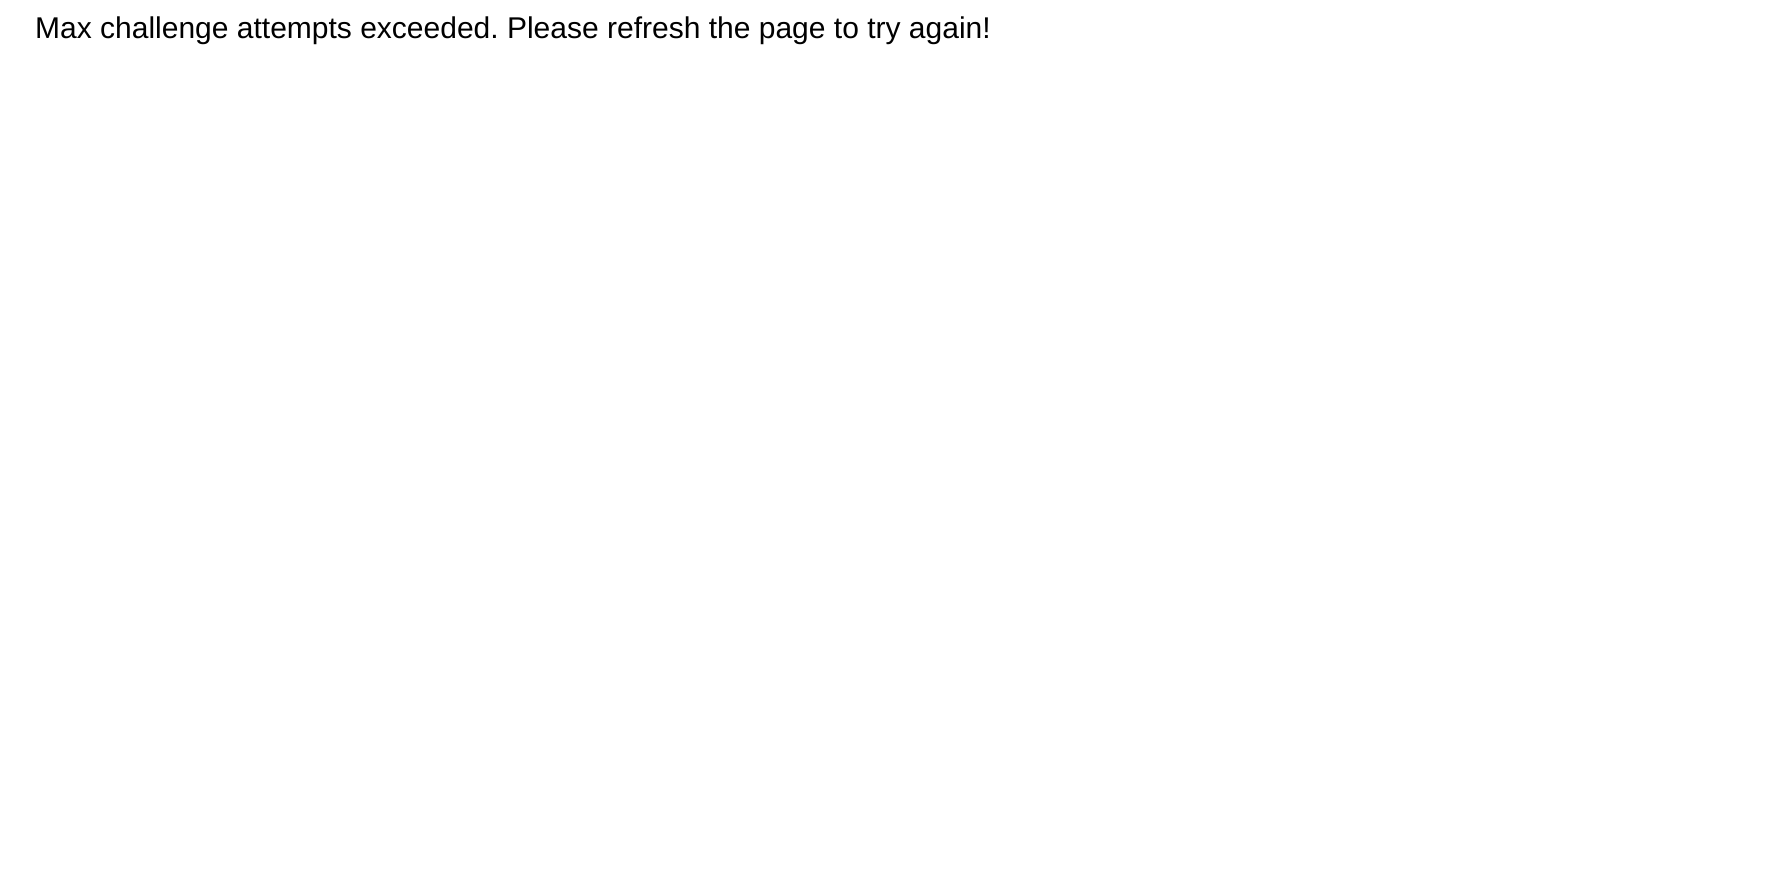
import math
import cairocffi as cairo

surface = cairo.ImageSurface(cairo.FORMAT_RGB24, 1788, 874)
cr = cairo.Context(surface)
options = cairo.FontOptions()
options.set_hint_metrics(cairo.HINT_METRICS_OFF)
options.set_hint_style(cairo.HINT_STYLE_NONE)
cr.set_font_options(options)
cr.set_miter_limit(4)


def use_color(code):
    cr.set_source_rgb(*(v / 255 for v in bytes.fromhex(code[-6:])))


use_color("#ffffff")
cr.paint()
cr.select_font_face("Liberation Sans")
cr.set_font_size(30)
use_color("#000000")
cr.move_to(35, 38)
cr.show_text("Max challenge attempts exceeded. Please refresh the page to try again!")
surface.write_to_png("result.png")
